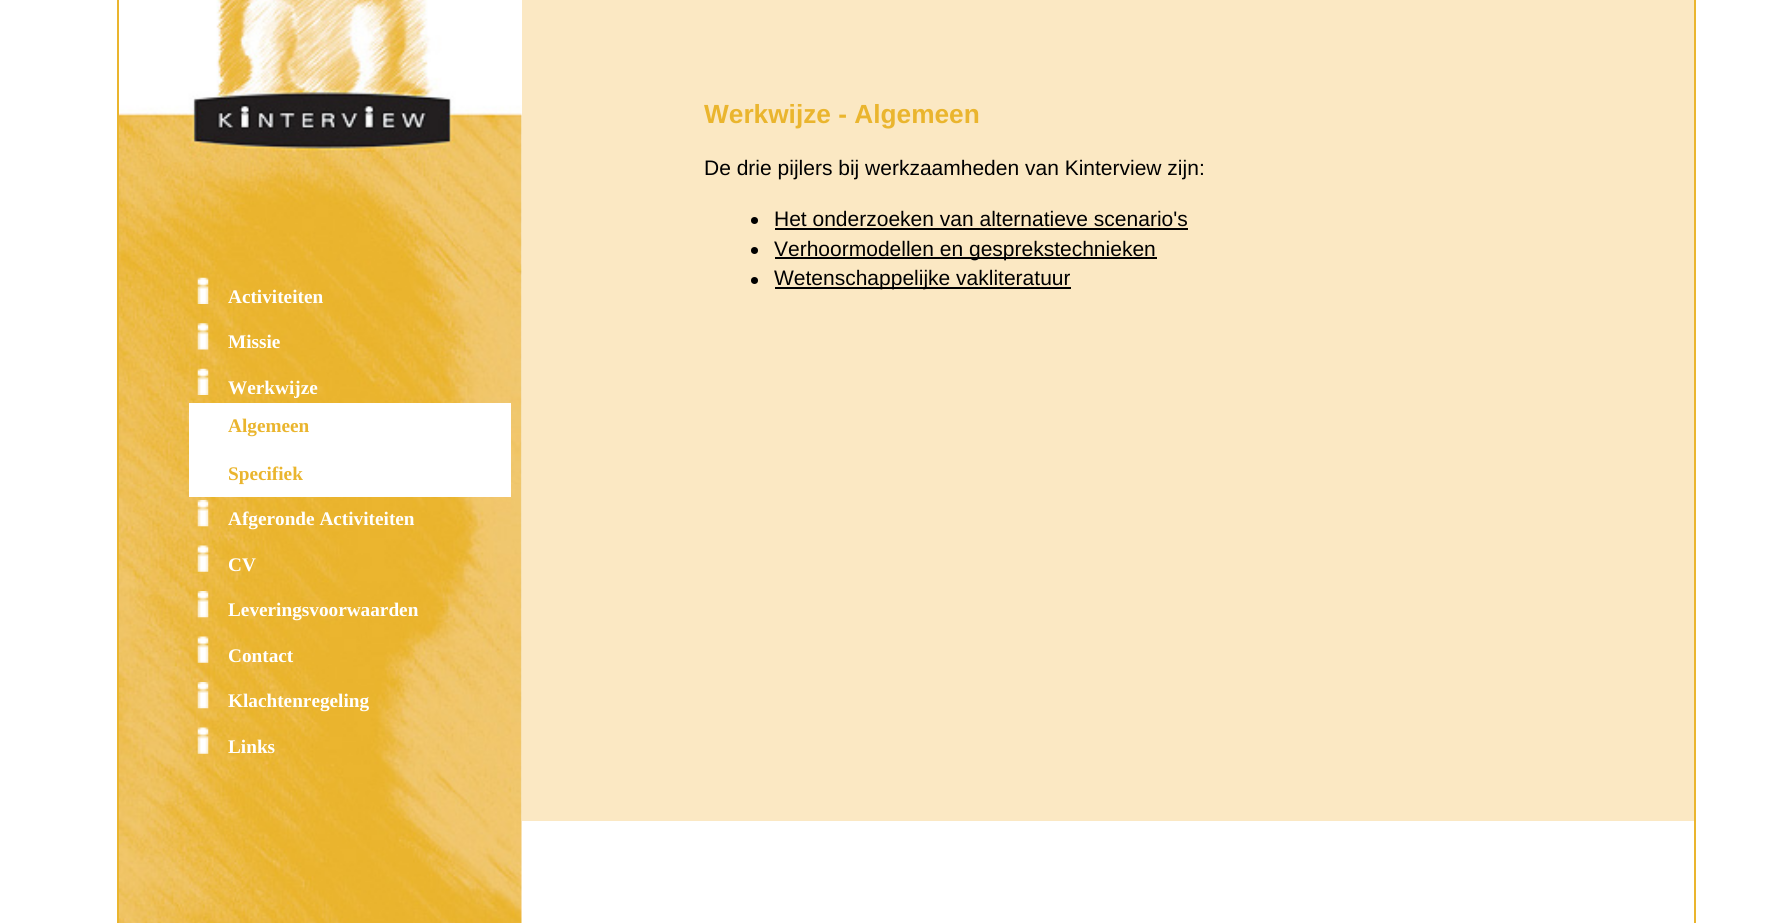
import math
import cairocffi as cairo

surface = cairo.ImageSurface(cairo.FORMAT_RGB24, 1790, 923)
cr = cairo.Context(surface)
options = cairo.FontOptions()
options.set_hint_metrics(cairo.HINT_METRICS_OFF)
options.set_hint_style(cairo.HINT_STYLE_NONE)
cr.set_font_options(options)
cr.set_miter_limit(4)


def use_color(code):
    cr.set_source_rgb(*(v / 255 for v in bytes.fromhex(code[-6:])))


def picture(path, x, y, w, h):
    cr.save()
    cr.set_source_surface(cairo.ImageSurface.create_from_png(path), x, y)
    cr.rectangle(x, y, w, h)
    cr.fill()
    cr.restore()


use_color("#ffffff")
cr.paint()
cr.rectangle(118, -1, 1577, 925)
use_color("#eab52e")
cr.stroke()
use_color("#fbe8c3")
cr.rectangle(522, 0, 1172, 821)
cr.fill()
cr.select_font_face("Liberation Sans", cairo.FONT_SLANT_NORMAL, cairo.FONT_WEIGHT_BOLD)
cr.set_font_size(26.25)
use_color("#eab52e")
cr.move_to(704, 123)
cr.show_text("Werkwijze - Algemeen")
cr.select_font_face("Liberation Sans")
cr.set_font_size(21)
use_color("#000000")
cr.move_to(704, 175)
cr.show_text("De drie pijlers bij werkzaamheden van Kinterview zijn:")
cr.new_path()
cr.arc(754.5, 220.5, 3.5, 0, 2 * math.pi)
cr.fill()
cr.move_to(774, 226)
cr.show_text("Het onderzoeken van alternatieve scenario's")
cr.rectangle(775, 228, 413, 2)
cr.fill()
cr.arc(754.5, 250.5, 3.5, 0, 2 * math.pi)
cr.fill()
cr.rectangle(775, 257, 382, 2)
cr.fill()
cr.move_to(774, 256)
cr.show_text("Verhoormodellen en gesprekstechnieken")
cr.new_path()
cr.arc(754.5, 280.5, 3.5, 0, 2 * math.pi)
cr.fill()
cr.rectangle(775, 287, 296, 2)
cr.fill()
cr.move_to(774, 285)
cr.show_text("Wetenschappelijke vakliteratuur")
picture("img1.png", 119, 0, 403, 923)
picture("img2.png", 197, 277, 12, 27)
cr.select_font_face("Liberation Serif", cairo.FONT_SLANT_NORMAL, cairo.FONT_WEIGHT_BOLD)
cr.set_font_size(19.25)
use_color("#ffffff")
cr.move_to(228, 303)
cr.show_text("Activiteiten")
picture("img3.png", 197, 323, 12, 27)
cr.move_to(228, 348)
cr.show_text("Missie")
picture("img4.png", 197, 368, 12, 27)
cr.move_to(228, 394)
cr.show_text("Werkwijze")
cr.rectangle(189, 403, 322, 94)
cr.fill()
use_color("#eab52e")
cr.move_to(228, 432)
cr.show_text("Algemeen")
cr.move_to(228, 480)
cr.show_text("Specifiek")
picture("img5.png", 197, 500, 12, 27)
use_color("#ffffff")
cr.move_to(228, 525)
cr.show_text("Afgeronde Activiteiten")
picture("img6.png", 197, 545, 12, 27)
cr.move_to(228, 571)
cr.show_text("CV")
picture("img7.png", 197, 591, 12, 27)
cr.move_to(228, 616)
cr.show_text("Leveringsvoorwaarden")
picture("img8.png", 197, 636, 12, 27)
cr.move_to(228, 662)
cr.show_text("Contact")
picture("img9.png", 197, 682, 12, 27)
cr.move_to(228, 707)
cr.show_text("Klachtenregeling")
picture("img10.png", 197, 727, 12, 27)
cr.move_to(228, 753)
cr.show_text("Links")
surface.write_to_png("result.png")
